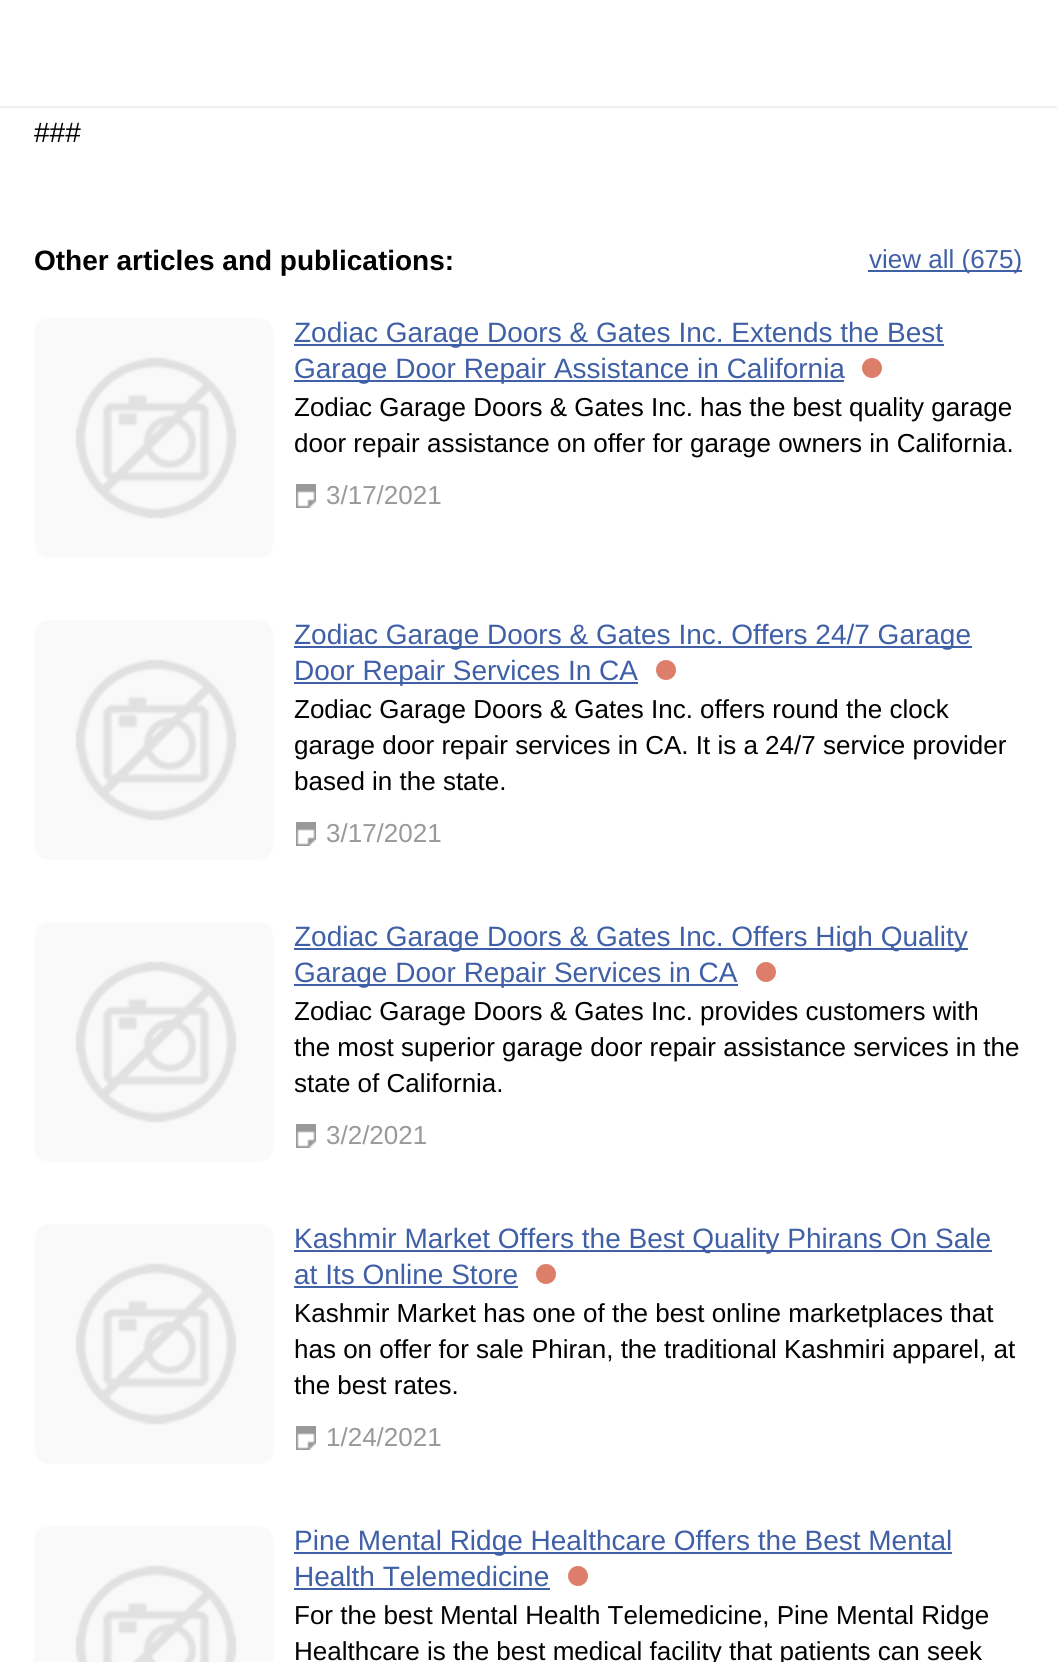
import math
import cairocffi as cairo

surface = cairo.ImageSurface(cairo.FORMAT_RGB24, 1057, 1662)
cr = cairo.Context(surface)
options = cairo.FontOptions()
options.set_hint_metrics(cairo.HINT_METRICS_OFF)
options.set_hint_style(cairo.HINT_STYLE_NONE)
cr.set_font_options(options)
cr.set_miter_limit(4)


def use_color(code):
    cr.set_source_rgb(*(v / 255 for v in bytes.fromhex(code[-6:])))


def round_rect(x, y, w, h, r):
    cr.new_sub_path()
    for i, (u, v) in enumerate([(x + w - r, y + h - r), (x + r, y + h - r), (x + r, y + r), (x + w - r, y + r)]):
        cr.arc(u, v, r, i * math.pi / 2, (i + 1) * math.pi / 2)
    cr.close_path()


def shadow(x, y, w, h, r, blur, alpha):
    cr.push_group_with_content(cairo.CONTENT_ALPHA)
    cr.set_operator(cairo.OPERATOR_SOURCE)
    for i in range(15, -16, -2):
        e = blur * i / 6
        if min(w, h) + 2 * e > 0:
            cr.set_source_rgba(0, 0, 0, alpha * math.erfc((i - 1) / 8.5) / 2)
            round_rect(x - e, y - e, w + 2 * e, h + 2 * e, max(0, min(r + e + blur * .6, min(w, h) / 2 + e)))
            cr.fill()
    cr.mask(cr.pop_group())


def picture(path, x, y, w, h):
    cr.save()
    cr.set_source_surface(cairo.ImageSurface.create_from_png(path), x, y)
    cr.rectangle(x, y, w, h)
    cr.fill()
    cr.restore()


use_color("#ffffff")
cr.paint()
shadow(0, 10, 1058, 108, 0, 5, 0.6)
shadow(0, 38, 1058, 78, 0, 5, 0.6)
use_color("#eeeeee")
cr.rectangle(0, 106, 1057, 2)
cr.fill()
cr.select_font_face("Liberation Sans")
cr.set_font_size(28)
use_color("#000000")
cr.move_to(34, 142)
cr.show_text("###")
cr.select_font_face("Liberation Sans", cairo.FONT_SLANT_NORMAL, cairo.FONT_WEIGHT_BOLD)
cr.move_to(34, 270)
cr.show_text("Other articles and publications:")
use_color("#3f5fa6")
cr.rectangle(868, 270, 154, 2)
cr.fill()
cr.select_font_face("Liberation Sans")
cr.set_font_size(26)
cr.move_to(869, 268)
cr.show_text("view all (675)")
picture("img1.png", 34, 318, 240, 240)
cr.rectangle(294, 344, 650, 2)
cr.fill()
cr.set_font_size(28)
cr.move_to(294, 342)
cr.show_text("Zodiac Garage Doors & Gates Inc. Extends the Best")
cr.rectangle(294, 380, 550, 2)
cr.fill()
cr.move_to(294, 378)
cr.show_text("Garage Door Repair Assistance in California")
use_color("#dd7e6b")
cr.new_path()
cr.arc(872, 368, 10, 0, 2 * math.pi)
cr.fill()
cr.set_font_size(26)
use_color("#000000")
cr.move_to(294, 416)
cr.show_text("Zodiac Garage Doors & Gates Inc. has the best quality garage")
cr.move_to(294, 452)
cr.show_text("door repair assistance on offer for garage owners in California.")
picture("img2.png", 296, 484, 20, 24)
use_color("#999999")
cr.move_to(326, 504)
cr.show_text("3/17/2021")
picture("img1.png", 34, 620, 240, 240)
use_color("#3f5fa6")
cr.rectangle(294, 646, 678, 2)
cr.fill()
cr.set_font_size(28)
cr.move_to(294, 644)
cr.show_text("Zodiac Garage Doors & Gates Inc. Offers 24/7 Garage")
cr.rectangle(294, 682, 344, 2)
cr.fill()
cr.move_to(294, 680)
cr.show_text("Door Repair Services In CA")
use_color("#dd7e6b")
cr.new_path()
cr.arc(666, 670, 10, 0, 2 * math.pi)
cr.fill()
cr.set_font_size(26)
use_color("#000000")
cr.move_to(294, 718)
cr.show_text("Zodiac Garage Doors & Gates Inc. offers round the clock")
cr.move_to(294, 754)
cr.show_text("garage door repair services in CA. It is a 24/7 service provider")
cr.move_to(294, 790)
cr.show_text("based in the state.")
picture("img2.png", 296, 822, 20, 24)
use_color("#999999")
cr.move_to(326, 842)
cr.show_text("3/17/2021")
picture("img1.png", 34, 922, 240, 240)
use_color("#3f5fa6")
cr.rectangle(294, 948, 674, 2)
cr.fill()
cr.set_font_size(28)
cr.move_to(294, 946)
cr.show_text("Zodiac Garage Doors & Gates Inc. Offers High Quality")
cr.rectangle(294, 984, 444, 2)
cr.fill()
cr.move_to(294, 982)
cr.show_text("Garage Door Repair Services in CA")
use_color("#dd7e6b")
cr.new_path()
cr.arc(766, 972, 10, 0, 2 * math.pi)
cr.fill()
cr.set_font_size(26)
use_color("#000000")
cr.move_to(294, 1020)
cr.show_text("Zodiac Garage Doors & Gates Inc. provides customers with")
cr.move_to(294, 1056)
cr.show_text("the most superior garage door repair assistance services in the")
cr.move_to(294, 1092)
cr.show_text("state of California.")
picture("img2.png", 296, 1124, 20, 24)
use_color("#999999")
cr.move_to(326, 1144)
cr.show_text("3/2/2021")
picture("img1.png", 34, 1224, 240, 240)
use_color("#3f5fa6")
cr.rectangle(294, 1250, 698, 2)
cr.fill()
cr.set_font_size(28)
cr.move_to(294, 1248)
cr.show_text("Kashmir Market Offers the Best Quality Phirans On Sale")
cr.move_to(294, 1284)
cr.show_text("at Its Online Store")
cr.rectangle(294, 1286, 224, 2)
cr.fill()
use_color("#dd7e6b")
cr.arc(546, 1274, 10, 0, 2 * math.pi)
cr.fill()
cr.set_font_size(26)
use_color("#000000")
cr.move_to(294, 1322)
cr.show_text("Kashmir Market has one of the best online marketplaces that")
cr.move_to(294, 1358)
cr.show_text("has on offer for sale Phiran, the traditional Kashmiri apparel, at")
cr.move_to(294, 1394)
cr.show_text("the best rates.")
picture("img2.png", 296, 1426, 20, 24)
use_color("#999999")
cr.move_to(326, 1446)
cr.show_text("1/24/2021")
picture("img3.png", 34, 1526, 240, 136)
use_color("#3f5fa6")
cr.rectangle(294, 1552, 658, 2)
cr.fill()
cr.set_font_size(28)
cr.move_to(294, 1550)
cr.show_text("Pine Mental Ridge Healthcare Offers the Best Mental")
cr.move_to(294, 1586)
cr.show_text("Health Telemedicine")
cr.rectangle(294, 1588, 256, 2)
cr.fill()
use_color("#dd7e6b")
cr.arc(578, 1576, 10, 0, 2 * math.pi)
cr.fill()
cr.set_font_size(26)
use_color("#000000")
cr.move_to(294, 1624)
cr.show_text("For the best Mental Health Telemedicine, Pine Mental Ridge")
cr.move_to(294, 1660)
cr.show_text("Healthcare is the best medical facility that patients can seek")
surface.write_to_png("result.png")
